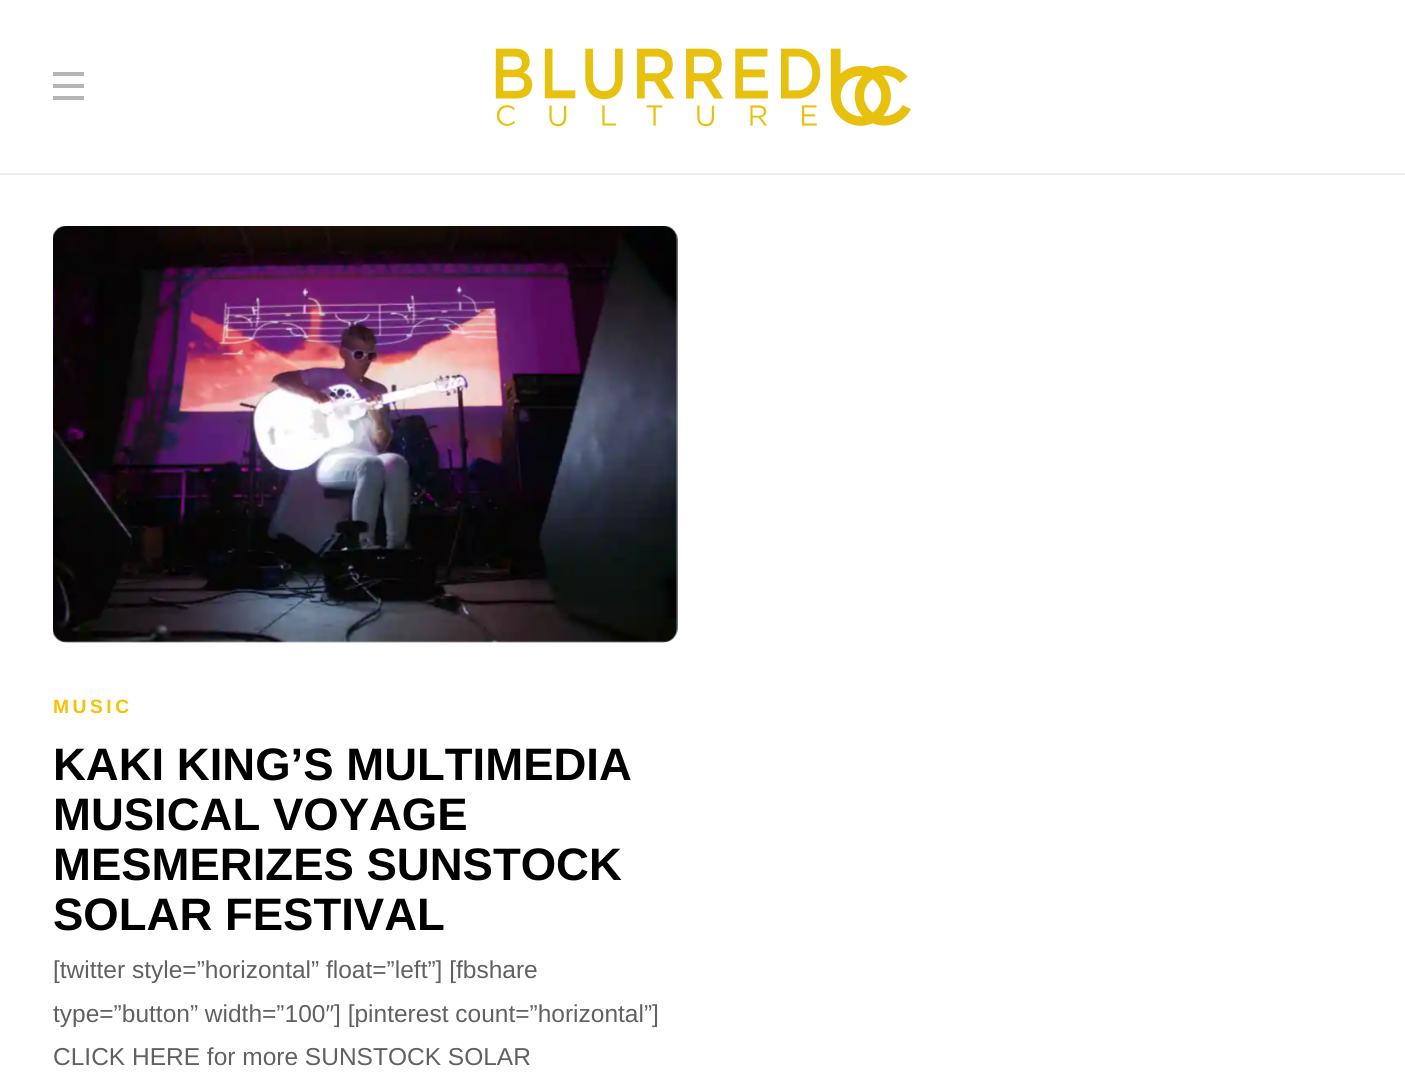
import math
import cairocffi as cairo

surface = cairo.ImageSurface(cairo.FORMAT_RGB24, 1405, 1090)
cr = cairo.Context(surface)
options = cairo.FontOptions()
options.set_hint_metrics(cairo.HINT_METRICS_OFF)
options.set_hint_style(cairo.HINT_STYLE_NONE)
cr.set_font_options(options)
cr.set_miter_limit(4)


def use_color(code):
    cr.set_source_rgb(*(v / 255 for v in bytes.fromhex(code[-6:])))


def spaced_text(x, y, s, letter, word):
    cr.move_to(x, y)
    for ch in s:
        cr.show_text(ch)
        cr.rel_move_to(letter + word * (ch == ' '), 0)


def picture(path, x, y, w, h):
    cr.save()
    cr.set_source_surface(cairo.ImageSurface.create_from_png(path), x, y)
    cr.rectangle(x, y, w, h)
    cr.fill()
    cr.restore()


use_color("#ffffff")
cr.paint()
use_color("#ededed")
cr.rectangle(0, 173, 1405, 2)
cr.fill()
use_color("#b5b5b5")
cr.rectangle(53, 72, 31, 4)
cr.fill()
cr.rectangle(53, 84, 31, 4)
cr.fill()
cr.rectangle(53, 96, 31, 4)
cr.fill()
picture("img1.png", 495, 48, 416, 79)
picture("img2.png", 53, 226, 625, 417)
cr.select_font_face("Liberation Sans", cairo.FONT_SLANT_NORMAL, cairo.FONT_WEIGHT_BOLD)
cr.set_font_size(19.25)
use_color("#f8c104")
spaced_text(53, 713, "MUSIC", 3.5, 0)
cr.set_font_size(45.5)
use_color("#000000")
cr.move_to(53, 780)
cr.show_text("KAKI KING’S MULTIMEDIA")
cr.move_to(53, 830)
cr.show_text("MUSICAL VOYAGE")
cr.move_to(53, 880)
cr.show_text("MESMERIZES SUNSTOCK")
cr.move_to(53, 930)
cr.show_text("SOLAR FESTIVAL")
cr.select_font_face("Liberation Sans")
cr.set_font_size(24.5)
use_color("#616161")
cr.move_to(53, 978)
cr.show_text("[twitter style=”horizontal” float=”left”] [fbshare")
cr.move_to(53, 1022)
cr.show_text("type=”button” width=”100″] [pinterest count=”horizontal”]")
cr.move_to(53, 1065)
cr.show_text("CLICK HERE for more SUNSTOCK SOLAR")
surface.write_to_png("result.png")
